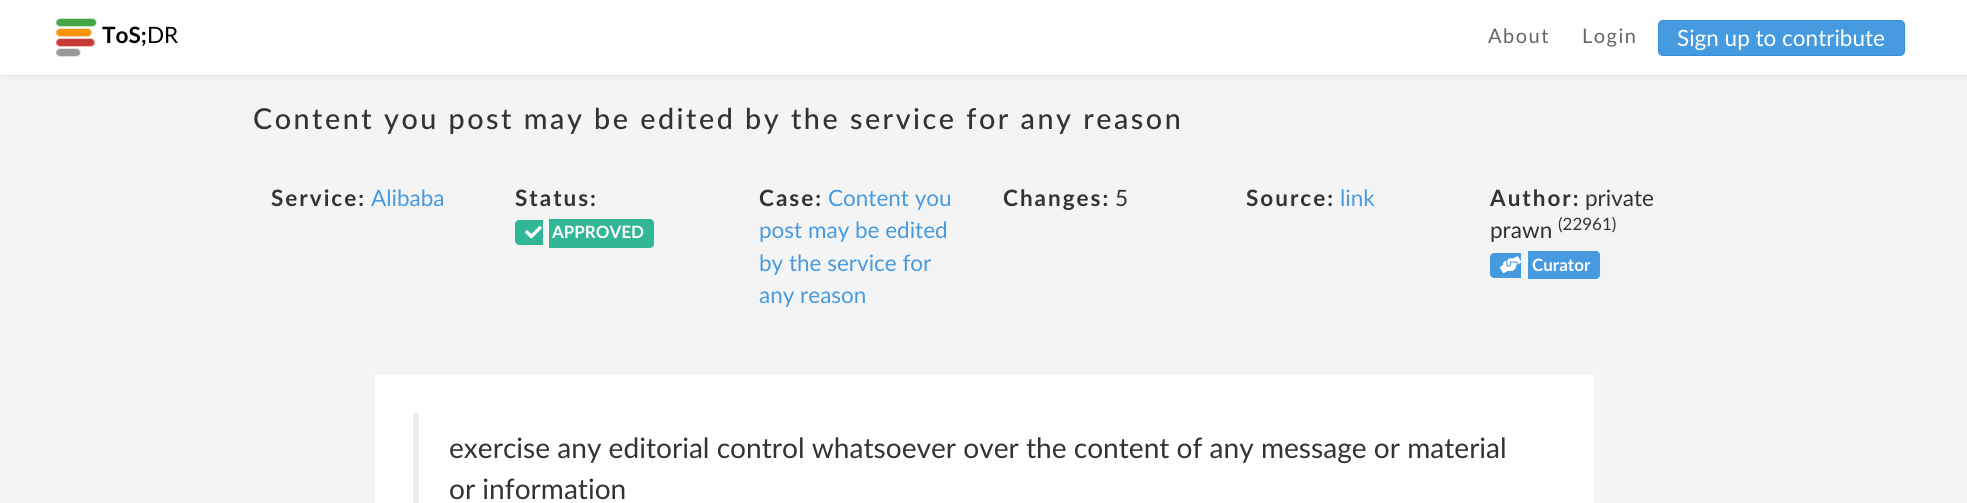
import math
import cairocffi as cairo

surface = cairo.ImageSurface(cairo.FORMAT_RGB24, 1967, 503)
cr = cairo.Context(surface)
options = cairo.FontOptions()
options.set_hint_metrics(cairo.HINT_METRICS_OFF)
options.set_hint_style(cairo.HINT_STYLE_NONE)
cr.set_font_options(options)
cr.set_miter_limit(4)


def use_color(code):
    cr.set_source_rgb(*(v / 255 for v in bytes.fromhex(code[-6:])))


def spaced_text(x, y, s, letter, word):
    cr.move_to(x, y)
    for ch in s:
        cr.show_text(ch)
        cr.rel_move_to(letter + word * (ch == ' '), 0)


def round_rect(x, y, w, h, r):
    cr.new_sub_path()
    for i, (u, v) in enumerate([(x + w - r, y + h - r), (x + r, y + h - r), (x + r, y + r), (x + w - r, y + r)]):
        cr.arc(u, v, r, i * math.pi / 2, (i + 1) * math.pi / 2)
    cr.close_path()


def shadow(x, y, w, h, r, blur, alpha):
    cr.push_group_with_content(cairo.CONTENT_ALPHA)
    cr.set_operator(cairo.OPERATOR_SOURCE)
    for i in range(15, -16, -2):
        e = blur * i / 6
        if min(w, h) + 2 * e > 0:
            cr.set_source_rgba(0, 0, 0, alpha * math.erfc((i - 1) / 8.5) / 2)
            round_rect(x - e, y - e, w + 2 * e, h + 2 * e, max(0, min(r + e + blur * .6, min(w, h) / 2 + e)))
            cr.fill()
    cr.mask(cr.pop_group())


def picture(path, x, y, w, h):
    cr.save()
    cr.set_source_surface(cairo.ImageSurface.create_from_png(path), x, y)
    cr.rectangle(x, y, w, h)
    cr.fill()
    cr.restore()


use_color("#f4f4f4")
cr.paint()
use_color("#ededed")
cr.new_path()
cr.move_to(0, 75)
cr.line_to(0, 76)
cr.line_to(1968, 76)
cr.line_to(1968, 1)
cr.line_to(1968, 75)
cr.close_path()
cr.fill()
use_color("#000000")
shadow(0, 1, 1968, 75, 0, 3, 0.07)
use_color("#ffffff")
cr.rectangle(0, 0, 1967, 75)
cr.fill()
picture("img1.png", 56, 18, 41, 39)
cr.select_font_face("Lato", cairo.FONT_SLANT_NORMAL, cairo.FONT_WEIGHT_BOLD)
cr.set_font_size(22.5)
use_color("#000000")
cr.move_to(102, 43)
cr.show_text("ToS;")
cr.select_font_face("Lato")
cr.move_to(147, 43)
cr.show_text("DR")
cr.set_font_size(20)
use_color("#616668")
spaced_text(1488, 43, "About", 1.5, 0)
spaced_text(1582, 43, "Login", 1.5, 0)
use_color("#469ae0")
round_rect(1658.5, 20.5, 246, 35, 4.5)
cr.fill_preserve()
use_color("#308edc")
cr.set_line_width(1)
cr.stroke()
cr.set_font_size(22.5)
use_color("#ffffff")
cr.move_to(1677, 46)
cr.show_text("Sign up to contribute")
cr.select_font_face("Lato Medium")
cr.set_font_size(28.75)
use_color("#333333")
spaced_text(253, 129, "Content you post may be edited by the service for any reason", 2.5, 0)
cr.select_font_face("Lato", cairo.FONT_SLANT_NORMAL, cairo.FONT_WEIGHT_BOLD)
cr.set_font_size(22.5)
spaced_text(271, 206, "Service:", 2, 0)
cr.select_font_face("Lato")
use_color("#469ae0")
cr.move_to(371, 206)
cr.show_text("Alibaba")
cr.select_font_face("Lato", cairo.FONT_SLANT_NORMAL, cairo.FONT_WEIGHT_BOLD)
use_color("#333333")
spaced_text(515, 206, "Status:", 2, 0)
use_color("#32b796")
cr.new_path()
cr.move_to(519, 220)
cr.line_to(543, 220)
cr.line_to(543, 245)
cr.line_to(519, 245)
cr.curve_to(517, 245, 515, 243, 515, 241)
cr.line_to(515, 224)
cr.curve_to(515, 222, 517, 220, 519, 220)
cr.close_path()
cr.fill()
cr.new_path()
cr.move_to(549, 219)
cr.line_to(650, 219)
cr.curve_to(652, 219, 654, 221, 654, 223)
cr.line_to(654, 244)
cr.curve_to(654, 246, 652, 248, 650, 248)
cr.line_to(549, 248)
cr.close_path()
cr.fill()
picture("img2.png", 525, 225, 17, 14)
cr.set_font_size(17)
use_color("#ffffff")
cr.move_to(552, 238)
cr.show_text("APPROVED")
cr.set_font_size(22.5)
use_color("#333333")
spaced_text(759, 206, "Case:", 2, 0)
cr.select_font_face("Lato")
use_color("#469ae0")
cr.move_to(828, 206)
cr.show_text("Content you")
cr.move_to(759, 238)
cr.show_text("post may be edited")
cr.move_to(759, 271)
cr.show_text("by the service for")
cr.move_to(759, 303)
cr.show_text("any reason")
cr.select_font_face("Lato", cairo.FONT_SLANT_NORMAL, cairo.FONT_WEIGHT_BOLD)
use_color("#333333")
spaced_text(1003, 206, "Changes:", 2, 0)
cr.select_font_face("Lato")
cr.move_to(1115, 206)
cr.show_text("5")
cr.select_font_face("Lato", cairo.FONT_SLANT_NORMAL, cairo.FONT_WEIGHT_BOLD)
spaced_text(1246, 206, "Source:", 2, 0)
cr.select_font_face("Lato")
use_color("#469ae0")
cr.move_to(1340, 206)
cr.show_text("link")
cr.select_font_face("Lato", cairo.FONT_SLANT_NORMAL, cairo.FONT_WEIGHT_BOLD)
use_color("#333333")
spaced_text(1490, 206, "Author:", 2, 0)
cr.select_font_face("Lato")
cr.move_to(1585, 206)
cr.show_text("private")
cr.move_to(1490, 238)
cr.show_text("prawn")
cr.set_font_size(17)
cr.move_to(1558, 230)
cr.show_text("(22961)")
use_color("#469ae0")
cr.new_path()
cr.move_to(1494, 253)
cr.line_to(1521, 253)
cr.line_to(1521, 278)
cr.line_to(1494, 278)
cr.curve_to(1492, 278, 1490, 276, 1490, 274)
cr.line_to(1490, 257)
cr.curve_to(1490, 255, 1492, 253, 1494, 253)
cr.close_path()
cr.fill()
cr.new_path()
cr.move_to(1528, 251)
cr.line_to(1596, 251)
cr.curve_to(1598, 251, 1600, 253, 1600, 255)
cr.line_to(1600, 275)
cr.curve_to(1600, 277, 1598, 279, 1596, 279)
cr.line_to(1528, 279)
cr.close_path()
cr.fill()
picture("img3.png", 1500, 256, 21, 18)
cr.select_font_face("Lato", cairo.FONT_SLANT_NORMAL, cairo.FONT_WEIGHT_BOLD)
use_color("#ffffff")
cr.move_to(1532, 271)
cr.show_text("Curator")
cr.rectangle(375, 375, 1219, 128)
cr.fill()
use_color("#eeeeee")
cr.rectangle(413, 413, 6, 90)
cr.fill()
cr.select_font_face("Lato")
cr.set_font_size(28.1)
use_color("#333333")
cr.move_to(449, 458)
cr.show_text("exercise any editorial control whatsoever over the content of any message or material")
cr.move_to(449, 499)
cr.show_text("or information")
surface.write_to_png("result.png")
